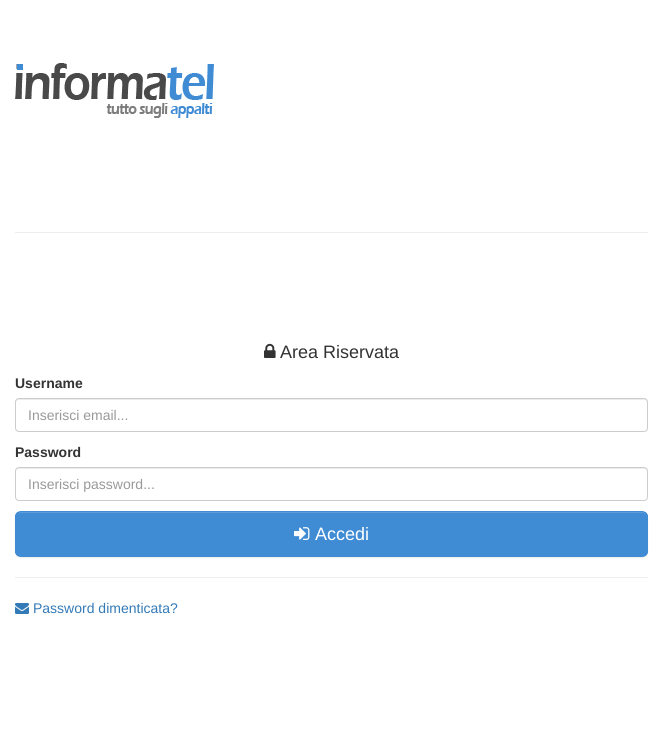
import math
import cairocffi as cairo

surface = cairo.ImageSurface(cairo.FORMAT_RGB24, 663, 729)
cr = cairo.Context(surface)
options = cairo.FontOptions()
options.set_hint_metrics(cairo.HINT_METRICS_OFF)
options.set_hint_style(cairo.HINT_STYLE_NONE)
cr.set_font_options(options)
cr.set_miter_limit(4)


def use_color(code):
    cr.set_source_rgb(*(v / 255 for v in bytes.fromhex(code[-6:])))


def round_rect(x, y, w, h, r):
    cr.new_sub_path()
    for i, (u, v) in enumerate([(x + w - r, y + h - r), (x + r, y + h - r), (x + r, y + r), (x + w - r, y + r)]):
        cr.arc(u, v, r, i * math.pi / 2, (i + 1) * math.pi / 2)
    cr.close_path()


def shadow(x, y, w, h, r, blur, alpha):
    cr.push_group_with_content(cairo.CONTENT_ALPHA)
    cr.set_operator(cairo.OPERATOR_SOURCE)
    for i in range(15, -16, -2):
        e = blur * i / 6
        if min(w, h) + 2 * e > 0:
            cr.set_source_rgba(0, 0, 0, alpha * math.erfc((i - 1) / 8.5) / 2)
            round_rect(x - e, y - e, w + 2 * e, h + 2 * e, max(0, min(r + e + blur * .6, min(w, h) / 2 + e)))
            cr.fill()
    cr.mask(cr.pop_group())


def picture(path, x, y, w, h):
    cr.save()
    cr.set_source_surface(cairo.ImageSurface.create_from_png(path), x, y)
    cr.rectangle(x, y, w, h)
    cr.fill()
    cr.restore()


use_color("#ffffff")
cr.paint()
picture("img1.png", 15, 63, 199, 55)
use_color("#eeeeee")
cr.rectangle(15, 232, 633, 1)
cr.fill()
picture("img2.png", 264, 343, 12, 15)
cr.select_font_face("Liberation Sans")
cr.set_font_size(18)
use_color("#333333")
cr.move_to(280, 358)
cr.show_text("Area Riservata")
cr.select_font_face("Liberation Sans", cairo.FONT_SLANT_NORMAL, cairo.FONT_WEIGHT_BOLD)
cr.set_font_size(14)
cr.move_to(15, 388)
cr.show_text("Username")
use_color("#ececec")
cr.new_path()
cr.move_to(19, 400)
cr.line_to(644, 400)
cr.curve_to(646, 400, 647, 401, 647, 403)
cr.line_to(647, 402)
cr.curve_to(647, 400, 646, 399, 644, 399)
cr.line_to(19, 399)
cr.curve_to(17, 399, 16, 400, 16, 402)
cr.line_to(16, 403)
cr.curve_to(16, 401, 17, 400, 19, 400)
cr.close_path()
cr.fill()
round_rect(15.5, 398.5, 632, 33, 3.5)
use_color("#cccccc")
cr.set_line_width(1)
cr.stroke()
cr.select_font_face("Liberation Sans")
use_color("#999999")
cr.move_to(28, 420)
cr.show_text("Inserisci email...")
cr.select_font_face("Liberation Sans", cairo.FONT_SLANT_NORMAL, cairo.FONT_WEIGHT_BOLD)
use_color("#333333")
cr.move_to(15, 457)
cr.show_text("Password")
use_color("#ececec")
cr.new_path()
cr.move_to(19, 469)
cr.line_to(644, 469)
cr.curve_to(646, 469, 647, 470, 647, 472)
cr.line_to(647, 471)
cr.curve_to(647, 469, 646, 468, 644, 468)
cr.line_to(19, 468)
cr.curve_to(17, 468, 16, 469, 16, 471)
cr.line_to(16, 472)
cr.curve_to(16, 470, 17, 469, 19, 469)
cr.close_path()
cr.fill()
round_rect(15.5, 467.5, 632, 33, 3.5)
use_color("#cccccc")
cr.stroke()
cr.select_font_face("Liberation Sans")
use_color("#999999")
cr.move_to(28, 489)
cr.show_text("Inserisci password...")
use_color("#000000")
shadow(15, 512, 633, 46, 6, 0.5, 0.07)
cr.save()
round_rect(15, 511, 633, 46, 6)
cr.clip()
use_color("#3f8bd4")
cr.rectangle(15, 512, 633, 44)
cr.fill()
cr.restore()
use_color("#5c9cda")
cr.new_path()
cr.move_to(21, 513)
cr.line_to(642, 513)
cr.curve_to(645, 513, 647, 515, 647, 518)
cr.curve_to(647, 515, 645, 512, 642, 512)
cr.line_to(21, 512)
cr.curve_to(18, 512, 16, 515, 16, 518)
cr.curve_to(16, 515, 18, 513, 21, 513)
cr.close_path()
cr.fill()
round_rect(15.5, 511.5, 632, 45, 5.5)
use_color("#3f8bd4")
cr.stroke()
picture("img3.png", 294, 527, 16, 13)
cr.set_font_size(18)
use_color("#ffffff")
cr.move_to(315, 540)
cr.show_text("Accedi")
use_color("#eeeeee")
cr.rectangle(15, 577, 633, 1)
cr.fill()
picture("img4.png", 15, 603, 14, 11)
cr.set_font_size(14)
use_color("#337ab7")
cr.move_to(33, 613)
cr.show_text("Password dimenticata?")
surface.write_to_png("result.png")
